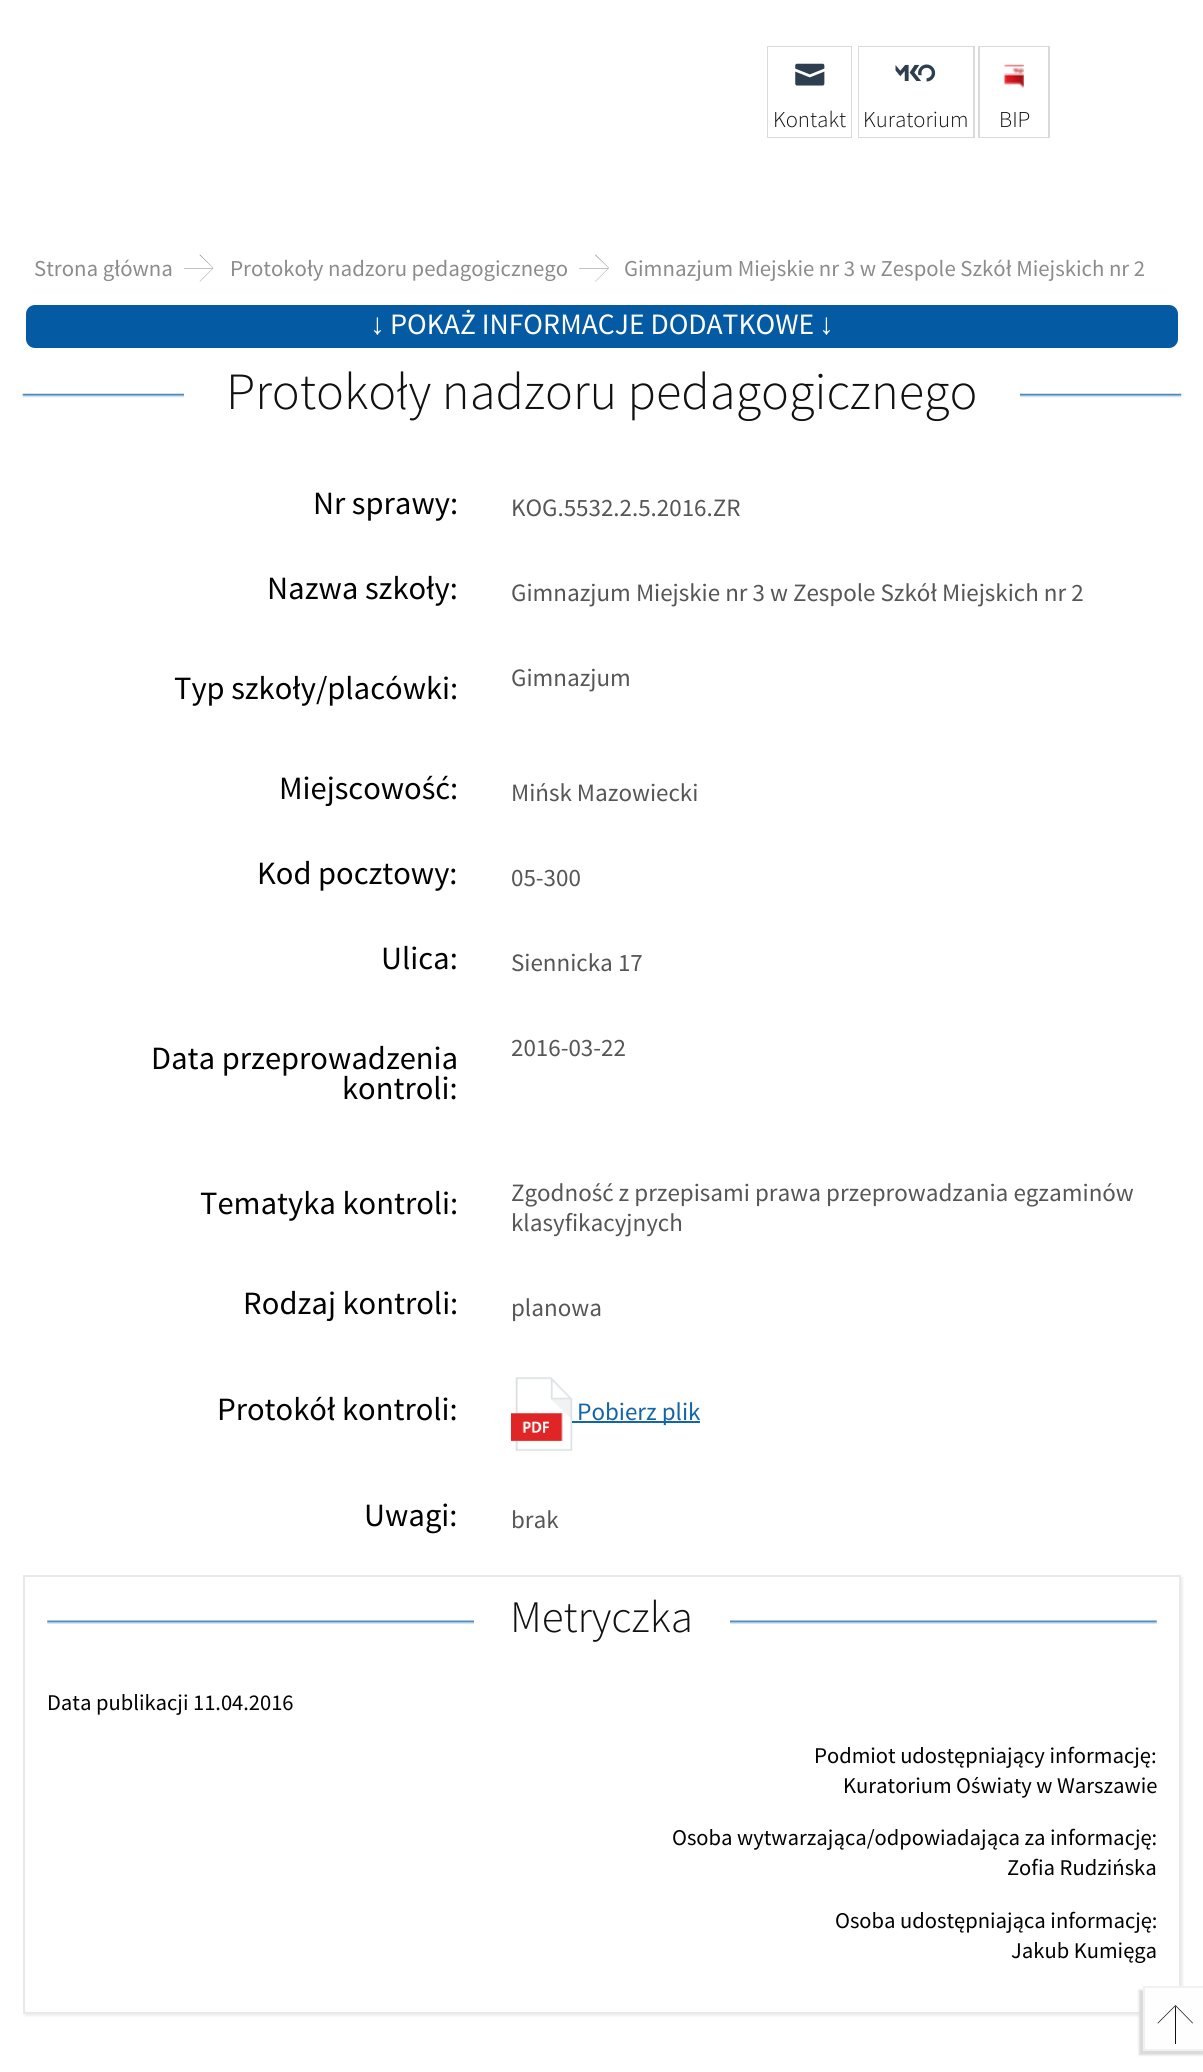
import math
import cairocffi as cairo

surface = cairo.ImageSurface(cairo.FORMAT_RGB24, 1203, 2072)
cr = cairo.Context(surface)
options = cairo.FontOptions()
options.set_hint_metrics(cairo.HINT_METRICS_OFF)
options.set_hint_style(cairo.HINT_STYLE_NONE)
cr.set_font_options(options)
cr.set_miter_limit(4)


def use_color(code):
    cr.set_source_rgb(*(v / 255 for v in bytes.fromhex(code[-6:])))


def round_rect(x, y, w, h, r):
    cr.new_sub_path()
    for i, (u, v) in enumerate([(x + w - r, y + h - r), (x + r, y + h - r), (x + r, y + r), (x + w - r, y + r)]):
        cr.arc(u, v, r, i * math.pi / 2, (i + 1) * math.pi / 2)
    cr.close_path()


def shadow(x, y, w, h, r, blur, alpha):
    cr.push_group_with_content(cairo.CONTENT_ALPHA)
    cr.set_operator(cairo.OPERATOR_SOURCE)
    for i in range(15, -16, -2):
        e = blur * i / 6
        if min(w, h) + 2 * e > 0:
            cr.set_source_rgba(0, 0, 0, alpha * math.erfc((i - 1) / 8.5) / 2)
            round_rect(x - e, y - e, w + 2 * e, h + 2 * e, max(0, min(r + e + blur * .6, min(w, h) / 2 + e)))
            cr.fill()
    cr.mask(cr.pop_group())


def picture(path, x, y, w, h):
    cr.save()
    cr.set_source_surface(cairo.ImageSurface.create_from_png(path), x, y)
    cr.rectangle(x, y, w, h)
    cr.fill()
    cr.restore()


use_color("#ffffff")
cr.paint()
cr.rectangle(768, 47, 83, 90)
use_color("#dadada")
cr.stroke()
use_color("#ffffff")
cr.rectangle(768, 47, 83, 90)
cr.fill()
picture("img1.png", 795, 63, 30, 23)
cr.select_font_face("Source Sans Pro Light")
cr.set_font_size(22.75)
use_color("#111111")
cr.move_to(773, 127)
cr.show_text("Kontakt")
cr.rectangle(859, 47, 115, 90)
use_color("#dadada")
cr.stroke()
use_color("#ffffff")
cr.rectangle(859, 47, 114, 90)
cr.fill()
picture("img2.png", 895, 64, 41, 18)
use_color("#111111")
cr.move_to(863, 127)
cr.show_text("Kuratorium")
cr.rectangle(979, 47, 70, 90)
use_color("#dadada")
cr.stroke()
use_color("#ffffff")
cr.rectangle(980, 47, 68, 90)
cr.fill()
picture("img3.png", 1004, 64, 20, 24)
use_color("#111111")
cr.move_to(999, 127)
cr.show_text("BIP")
cr.select_font_face("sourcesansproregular")
use_color("#8c8c8c")
cr.move_to(34, 276)
cr.show_text("Strona główna")
cr.new_path()
cr.move_to(213.5, 268)
cr.line_to(200, 281.5)
cr.line_to(199.5, 281.5)
cr.line_to(213, 268)
cr.line_to(199.5, 255)
cr.line_to(200, 254.5)
cr.close_path()
cr.move_to(212.5, 268)
cr.line_to(184, 268)
cr.line_to(184, 268.5)
cr.line_to(212.5, 268.5)
cr.close_path()
cr.fill()
cr.move_to(230, 276)
cr.show_text("Protokoły nadzoru pedagogicznego")
cr.new_path()
cr.move_to(609, 268)
cr.line_to(595.5, 281.5)
cr.line_to(595, 281.5)
cr.line_to(608.5, 268)
cr.line_to(595, 255)
cr.line_to(595.5, 254.5)
cr.close_path()
cr.move_to(608, 268)
cr.line_to(579, 268)
cr.line_to(579, 268.5)
cr.line_to(608, 268.5)
cr.close_path()
cr.fill()
cr.move_to(624, 276)
cr.show_text("Gimnazjum Miejskie nr 3 w Zespole Szkół Miejskich nr 2")
use_color("#055ba3")
round_rect(26, 305, 1152, 43, 9)
cr.fill()
cr.select_font_face("Liberation Serif")
cr.set_font_size(29.6)
use_color("#ffffff")
cr.move_to(370, 334)
cr.show_text("↓")
cr.select_font_face("sourcesansproregular")
cr.move_to(390, 334)
cr.show_text("POKAŻ INFORMACJE DODATKOWE")
cr.select_font_face("Liberation Serif")
cr.move_to(819, 334)
cr.show_text("↓")
picture("img4.png", 22, 393, 1160, 5)
cr.rectangle(184, 393, 836, 5)
cr.fill()
cr.select_font_face("Source Sans Pro Light")
cr.set_font_size(52.25)
use_color("#111111")
cr.move_to(226, 409)
cr.show_text("Protokoły nadzoru pedagogicznego")
cr.select_font_face("sourcesansproregular")
cr.set_font_size(32.5)
use_color("#010101")
cr.move_to(313, 514)
cr.show_text("Nr sprawy:")
cr.set_font_size(25)
use_color("#565656")
cr.move_to(511, 516)
cr.show_text("KOG.5532.2.5.2016.ZR")
cr.set_font_size(32.5)
use_color("#010101")
cr.move_to(267, 599)
cr.show_text("Nazwa szkoły:")
cr.set_font_size(25)
use_color("#565656")
cr.move_to(511, 601)
cr.show_text("Gimnazjum Miejskie nr 3 w Zespole Szkół Miejskich nr 2")
cr.set_font_size(32.5)
use_color("#010101")
cr.move_to(174, 699)
cr.show_text("Typ szkoły/placówki:")
cr.set_font_size(25)
use_color("#565656")
cr.move_to(511, 686)
cr.show_text("Gimnazjum")
cr.set_font_size(32.5)
use_color("#010101")
cr.move_to(279, 799)
cr.show_text("Miejscowość:")
cr.set_font_size(25)
use_color("#565656")
cr.move_to(511, 801)
cr.show_text("Mińsk Mazowiecki")
cr.set_font_size(32.5)
use_color("#010101")
cr.move_to(257, 884)
cr.show_text("Kod pocztowy:")
cr.set_font_size(25)
use_color("#565656")
cr.move_to(511, 886)
cr.show_text("05-300")
cr.set_font_size(32.5)
use_color("#010101")
cr.move_to(381, 969)
cr.show_text("Ulica:")
cr.set_font_size(25)
use_color("#565656")
cr.move_to(511, 971)
cr.show_text("Siennicka 17")
cr.set_font_size(32.5)
use_color("#010101")
cr.move_to(151, 1069)
cr.show_text("Data przeprowadzenia")
cr.move_to(342, 1099)
cr.show_text("kontroli:")
cr.set_font_size(25)
use_color("#565656")
cr.move_to(511, 1056)
cr.show_text("2016-03-22")
cr.set_font_size(32.5)
use_color("#010101")
cr.move_to(200, 1214)
cr.show_text("Tematyka kontroli:")
cr.set_font_size(25)
use_color("#565656")
cr.move_to(511, 1201)
cr.show_text("Zgodność z przepisami prawa przeprowadzania egzaminów")
cr.move_to(511, 1231)
cr.show_text("klasyfikacyjnych")
cr.set_font_size(32.5)
use_color("#010101")
cr.move_to(243, 1314)
cr.show_text("Rodzaj kontroli:")
cr.set_font_size(25)
use_color("#565656")
cr.move_to(511, 1316)
cr.show_text("planowa")
cr.set_font_size(32.5)
use_color("#010101")
cr.move_to(217, 1420)
cr.show_text("Protokół kontroli:")
picture("img5.png", 511, 1377, 62, 74)
use_color("#1465a8")
cr.rectangle(572, 1421, 128, 2)
cr.fill()
cr.set_font_size(25)
cr.move_to(577, 1420)
cr.show_text("Pobierz plik")
cr.set_font_size(32.5)
use_color("#010101")
cr.move_to(364, 1526)
cr.show_text("Uwagi:")
cr.set_font_size(25)
use_color("#565656")
cr.move_to(511, 1528)
cr.show_text("brak")
cr.save()
cr.set_fill_rule(cairo.FILL_RULE_EVEN_ODD)
cr.new_path()
cr.move_to(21, 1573)
cr.line_to(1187, 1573)
cr.line_to(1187, 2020)
cr.line_to(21, 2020)
cr.close_path()
cr.move_to(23, 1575)
cr.line_to(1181, 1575)
cr.line_to(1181, 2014)
cr.line_to(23, 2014)
cr.close_path()
cr.clip()
use_color("#ecf0f1")
shadow(25, 1577, 1158, 439, 0, 1, 1)
cr.restore()
cr.rectangle(24, 1576, 1156, 437)
use_color("#e9e9e9")
cr.stroke()
picture("img6.png", 47, 1620, 1110, 4)
use_color("#ffffff")
cr.rectangle(474, 1620, 256, 4)
cr.fill()
cr.select_font_face("Source Sans Pro Light")
cr.set_font_size(45)
use_color("#111111")
cr.move_to(510, 1632)
cr.show_text("Metryczka")
cr.select_font_face("sourcesansproregular")
cr.set_font_size(22.5)
use_color("#010101")
cr.move_to(47, 1710)
cr.show_text("Data publikacji 11.04.2016")
cr.move_to(814, 1763)
cr.show_text("Podmiot udostępniający informację:")
cr.move_to(843, 1793)
cr.show_text("Kuratorium Oświaty w Warszawie")
cr.move_to(672, 1845)
cr.show_text("Osoba wytwarzająca/odpowiadająca za informację:")
cr.move_to(1007, 1875)
cr.show_text("Zofia Rudzińska")
cr.move_to(835, 1928)
cr.show_text("Osoba udostępniająca informację:")
cr.move_to(1011, 1958)
cr.show_text("Jakub Kumięga")
use_color("#dadada")
shadow(1139, 1990, 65, 65, 0, 1, 1)
use_color("#fefefe")
cr.rectangle(1144, 1987, 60, 63)
cr.fill_preserve()
use_color("#f1f1f1")
cr.stroke()
use_color("#111111")
cr.new_path()
cr.move_to(1175.5, 2005)
cr.line_to(1157.5, 2023)
cr.line_to(1158, 2023.5)
cr.line_to(1175.5, 2006)
cr.line_to(1192.5, 2023.5)
cr.line_to(1193, 2023)
cr.close_path()
cr.move_to(1176, 2006.5)
cr.line_to(1176, 2044)
cr.line_to(1175, 2044)
cr.line_to(1175, 2006.5)
cr.close_path()
cr.fill()
surface.write_to_png("result.png")
